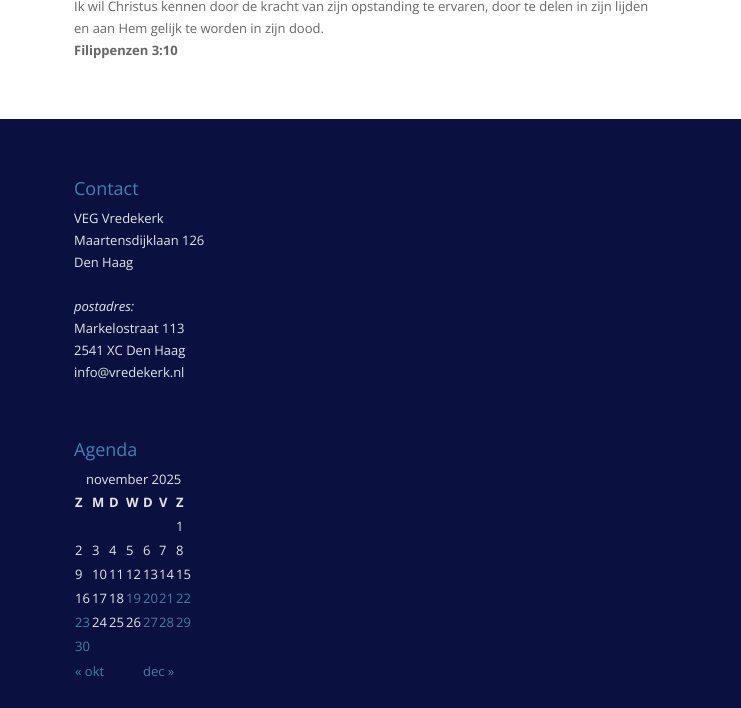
import math
import cairocffi as cairo

surface = cairo.ImageSurface(cairo.FORMAT_RGB24, 741, 708)
cr = cairo.Context(surface)
options = cairo.FontOptions()
options.set_hint_metrics(cairo.HINT_METRICS_OFF)
options.set_hint_style(cairo.HINT_STYLE_NONE)
cr.set_font_options(options)
cr.set_miter_limit(4)


def use_color(code):
    cr.set_source_rgb(*(v / 255 for v in bytes.fromhex(code[-6:])))


use_color("#ffffff")
cr.paint()
cr.select_font_face("Open Sans")
cr.set_font_size(13)
use_color("#666666")
cr.move_to(74, 11)
cr.show_text("Ik wil Christus kennen door de kracht van zijn opstanding te ervaren, door te delen in zijn lijden")
cr.move_to(74, 33)
cr.show_text("en aan Hem gelijk te worden in zijn dood.")
cr.select_font_face("Open Sans", cairo.FONT_SLANT_NORMAL, cairo.FONT_WEIGHT_BOLD)
cr.move_to(74, 55)
cr.show_text("Filippenzen 3:10")
use_color("#0a103f")
cr.rectangle(0, 119, 741, 589)
cr.fill()
cr.select_font_face("Open Sans")
cr.set_font_size(18)
use_color("#4280b3")
cr.move_to(74, 195)
cr.show_text("Contact")
cr.set_font_size(13)
use_color("#e5e5e5")
cr.move_to(74, 223)
cr.show_text("VEG Vredekerk")
cr.move_to(74, 245)
cr.show_text("Maartensdijklaan 126")
cr.move_to(74, 267)
cr.show_text("Den Haag")
cr.select_font_face("Open Sans", cairo.FONT_SLANT_ITALIC)
cr.move_to(74, 311)
cr.show_text("postadres:")
cr.select_font_face("Open Sans")
cr.move_to(74, 333)
cr.show_text("Markelostraat 113")
cr.move_to(74, 355)
cr.show_text("2541 XC Den Haag")
cr.move_to(74, 377)
cr.show_text("info@vredekerk.nl")
cr.set_font_size(18)
use_color("#4280b3")
cr.move_to(74, 456)
cr.show_text("Agenda")
cr.set_font_size(13)
use_color("#e5e5e5")
cr.move_to(86, 484)
cr.show_text("november 2025")
cr.select_font_face("Open Sans", cairo.FONT_SLANT_NORMAL, cairo.FONT_WEIGHT_BOLD)
cr.move_to(75, 507)
cr.show_text("Z")
cr.move_to(92, 507)
cr.show_text("M")
cr.move_to(109, 507)
cr.show_text("D")
cr.move_to(126, 507)
cr.show_text("W")
cr.move_to(143, 507)
cr.show_text("D")
cr.move_to(159, 507)
cr.show_text("V")
cr.move_to(176, 507)
cr.show_text("Z")
cr.select_font_face("Open Sans")
cr.move_to(176, 531)
cr.show_text("1")
cr.move_to(75, 555)
cr.show_text("2")
cr.move_to(92, 555)
cr.show_text("3")
cr.move_to(109, 555)
cr.show_text("4")
cr.move_to(126, 555)
cr.show_text("5")
cr.move_to(143, 555)
cr.show_text("6")
cr.move_to(159, 555)
cr.show_text("7")
cr.move_to(176, 555)
cr.show_text("8")
cr.move_to(75, 579)
cr.show_text("9")
cr.move_to(92, 579)
cr.show_text("10")
cr.move_to(109, 579)
cr.show_text("11")
cr.move_to(126, 579)
cr.show_text("12")
cr.move_to(143, 579)
cr.show_text("13")
cr.move_to(159, 579)
cr.show_text("14")
cr.move_to(176, 579)
cr.show_text("15")
cr.move_to(75, 603)
cr.show_text("16")
cr.move_to(92, 603)
cr.show_text("17")
cr.move_to(109, 603)
cr.show_text("18")
use_color("#4280a0")
cr.move_to(126, 603)
cr.show_text("19")
cr.move_to(143, 603)
cr.show_text("20")
cr.move_to(159, 603)
cr.show_text("21")
cr.move_to(176, 603)
cr.show_text("22")
cr.move_to(75, 627)
cr.show_text("23")
use_color("#e5e5e5")
cr.move_to(92, 627)
cr.show_text("24")
cr.move_to(109, 627)
cr.show_text("25")
cr.move_to(126, 627)
cr.show_text("26")
use_color("#4280a0")
cr.move_to(143, 627)
cr.show_text("27")
cr.move_to(159, 627)
cr.show_text("28")
cr.move_to(176, 627)
cr.show_text("29")
cr.move_to(75, 651)
cr.show_text("30")
cr.move_to(75, 676)
cr.show_text("« okt")
cr.move_to(143, 676)
cr.show_text("dec »")
surface.write_to_png("result.png")
